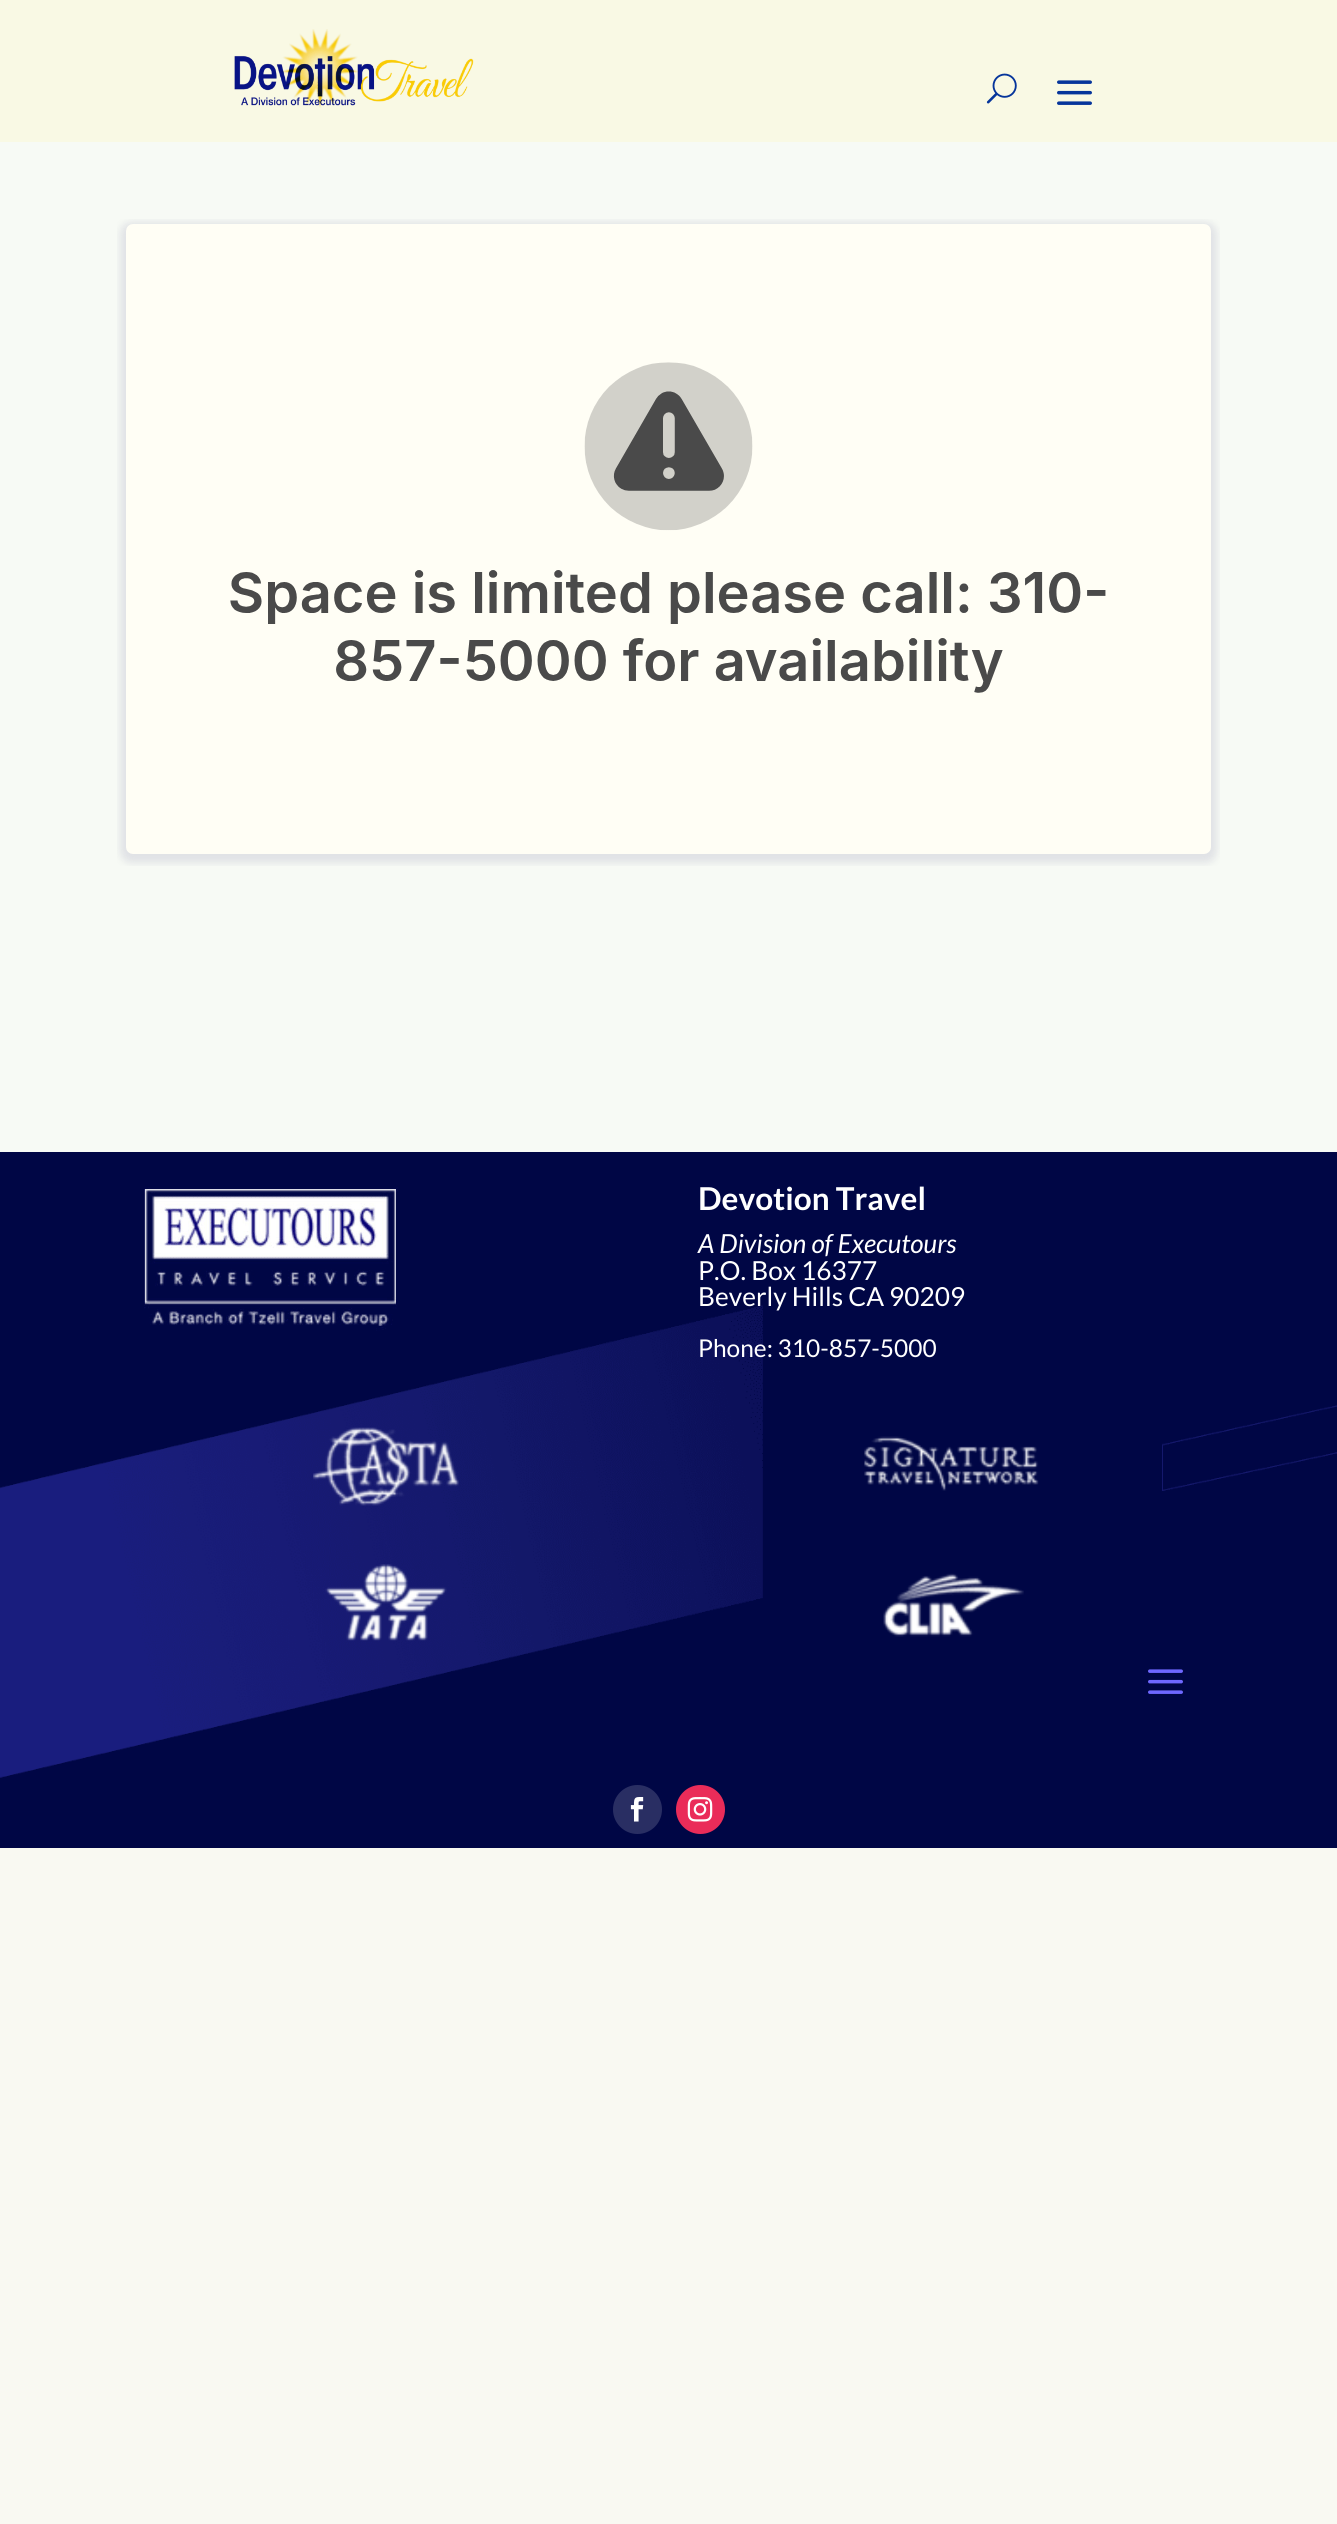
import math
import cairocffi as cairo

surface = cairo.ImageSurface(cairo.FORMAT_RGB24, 1337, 2524)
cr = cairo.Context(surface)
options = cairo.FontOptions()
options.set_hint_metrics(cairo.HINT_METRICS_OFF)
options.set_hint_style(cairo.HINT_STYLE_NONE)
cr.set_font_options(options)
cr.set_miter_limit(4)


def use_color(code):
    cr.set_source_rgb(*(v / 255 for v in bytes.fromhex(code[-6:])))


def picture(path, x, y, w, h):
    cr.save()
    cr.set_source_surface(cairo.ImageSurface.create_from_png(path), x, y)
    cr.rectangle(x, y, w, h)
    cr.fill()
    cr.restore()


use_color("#f9f9f2")
cr.paint()
use_color("#f9f9e4")
cr.rectangle(0, 0, 1337, 142)
cr.fill()
picture("img1.png", 234, 29, 240, 79)
picture("img2.png", 986, 73, 31, 31)
picture("img3.png", 1057, 80, 35, 25)
use_color("#f7faf5")
cr.rectangle(0, 142, 1337, 1010)
cr.fill()
picture("img4.png", 117, 219, 1103, 647)
use_color("#000645")
cr.rectangle(0, 1152, 1337, 696)
cr.fill()
picture("img5.png", 0, 1305, 1337, 473)
picture("img6.png", 144, 1187, 254, 144)
cr.select_font_face("Lato", cairo.FONT_SLANT_NORMAL, cairo.FONT_WEIGHT_BOLD)
cr.set_font_size(31.5)
use_color("#ffffff")
cr.move_to(698, 1210)
cr.show_text("Devotion Travel")
cr.select_font_face("Lato", cairo.FONT_SLANT_ITALIC)
cr.set_font_size(26.25)
cr.move_to(698, 1253)
cr.show_text("A Division of Executours")
cr.select_font_face("Lato")
cr.move_to(698, 1280)
cr.show_text("P.O. Box 16377")
cr.move_to(698, 1306)
cr.show_text("Beverly Hills CA 90209")
cr.set_font_size(24.5)
cr.move_to(698, 1357)
cr.show_text("Phone: 310-857-5000")
picture("img7.png", 313, 1427, 146, 79)
picture("img8.png", 325, 1564, 122, 77)
picture("img9.png", 864, 1436, 175, 55)
picture("img10.png", 883, 1573, 141, 64)
picture("img11.png", 1148, 1669, 35, 25)
use_color("#292e63")
cr.arc(637.5, 1809.5, 24.5, 0, 2 * math.pi)
cr.fill()
picture("img12.png", 630, 1797, 14, 25)
use_color("#ea2c59")
cr.arc(700.5, 1809.5, 24.5, 0, 2 * math.pi)
cr.fill()
picture("img13.png", 687, 1797, 26, 25)
surface.write_to_png("result.png")
